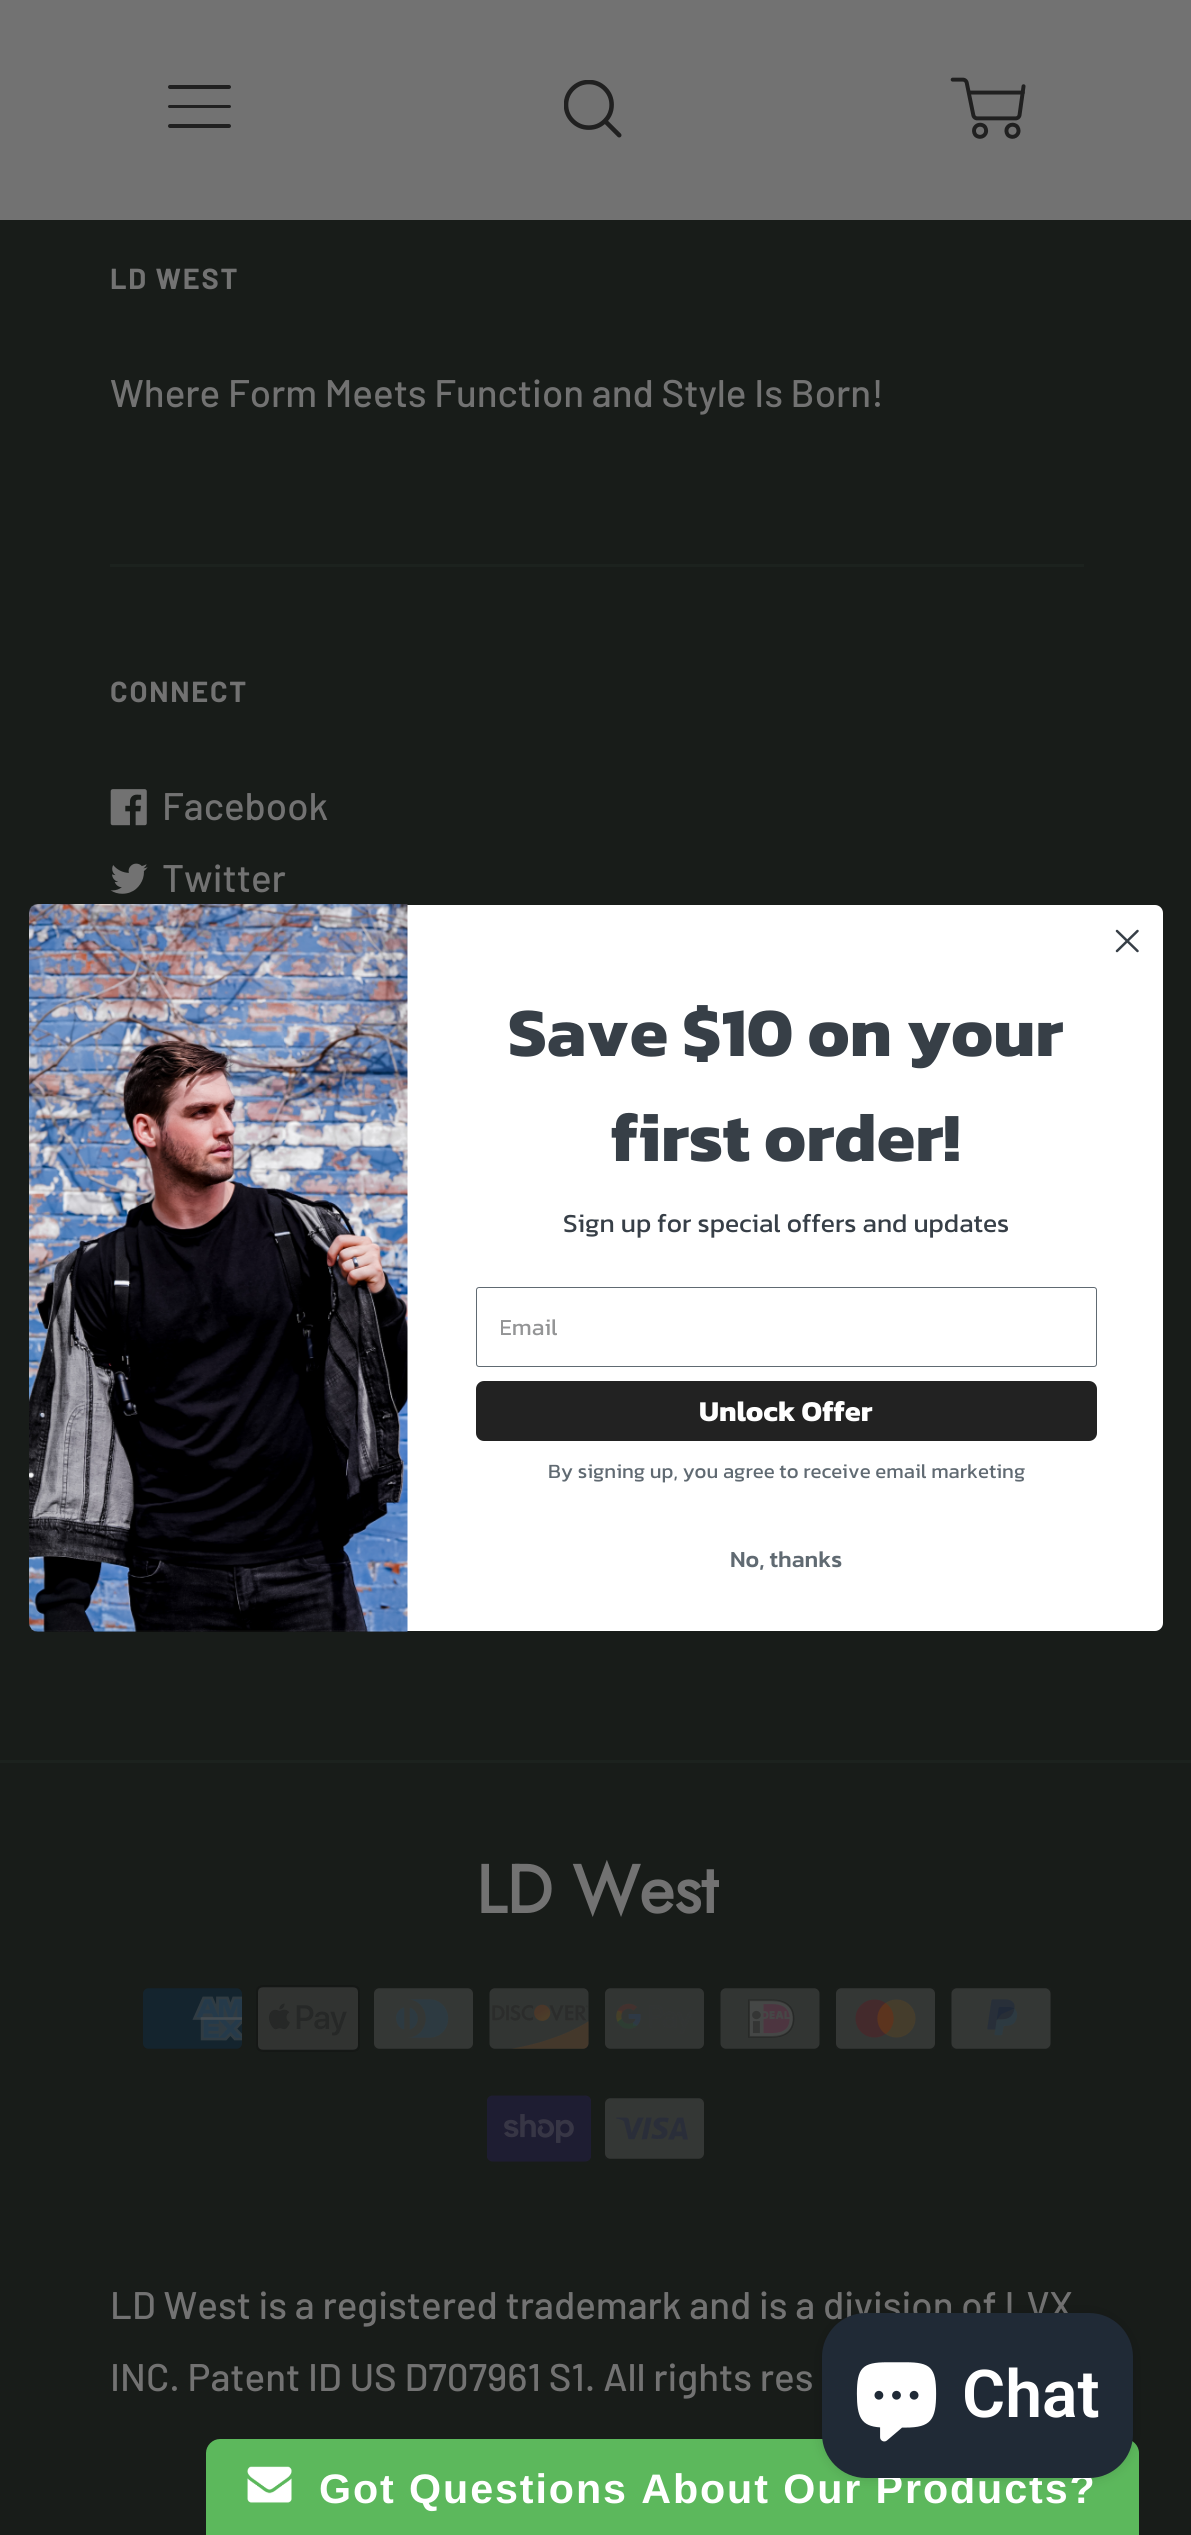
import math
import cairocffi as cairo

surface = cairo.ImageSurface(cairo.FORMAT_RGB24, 1191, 2535)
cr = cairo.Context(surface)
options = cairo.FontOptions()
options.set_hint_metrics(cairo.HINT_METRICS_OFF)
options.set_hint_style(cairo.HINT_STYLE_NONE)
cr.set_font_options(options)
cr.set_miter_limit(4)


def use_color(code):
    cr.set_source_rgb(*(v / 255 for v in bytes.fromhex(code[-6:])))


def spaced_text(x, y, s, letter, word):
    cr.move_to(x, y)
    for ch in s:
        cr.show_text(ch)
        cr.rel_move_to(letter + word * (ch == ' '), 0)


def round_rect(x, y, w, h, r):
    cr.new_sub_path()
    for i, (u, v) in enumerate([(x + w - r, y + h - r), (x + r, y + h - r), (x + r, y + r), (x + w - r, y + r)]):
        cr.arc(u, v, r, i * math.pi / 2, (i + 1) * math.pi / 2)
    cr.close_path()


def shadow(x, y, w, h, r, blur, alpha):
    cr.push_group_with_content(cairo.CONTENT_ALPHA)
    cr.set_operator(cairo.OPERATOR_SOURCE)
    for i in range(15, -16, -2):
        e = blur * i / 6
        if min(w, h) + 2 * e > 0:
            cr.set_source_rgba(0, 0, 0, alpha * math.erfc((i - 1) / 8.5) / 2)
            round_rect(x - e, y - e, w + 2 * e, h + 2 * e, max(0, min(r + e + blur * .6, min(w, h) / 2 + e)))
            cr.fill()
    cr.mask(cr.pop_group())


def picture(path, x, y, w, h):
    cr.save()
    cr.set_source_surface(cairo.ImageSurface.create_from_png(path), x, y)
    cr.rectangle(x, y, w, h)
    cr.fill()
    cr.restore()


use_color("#181c19")
cr.paint()
use_color("#727272")
cr.rectangle(0, 0, 1191, 220)
cr.fill()
use_color("#202020")
round_rect(168, 85, 63, 4, 2)
cr.fill()
round_rect(168, 105, 63, 3, 1.5)
cr.fill()
round_rect(168, 124, 63, 4, 2)
cr.fill()
picture("img1.png", 564, 80, 58, 58)
picture("img2.png", 950, 77, 76, 62)
cr.select_font_face("Barlow", cairo.FONT_SLANT_NORMAL, cairo.FONT_WEIGHT_BOLD)
cr.set_font_size(29)
use_color("#727272")
spaced_text(110, 289, "LD WEST", 1.75, 0)
cr.select_font_face("Barlow Medium")
cr.set_font_size(38.5)
cr.move_to(110, 407)
cr.show_text("Where Form Meets Function and Style Is Born!")
use_color("#1c221e")
cr.rectangle(110, 564, 974, 3)
cr.fill()
cr.select_font_face("Barlow", cairo.FONT_SLANT_NORMAL, cairo.FONT_WEIGHT_BOLD)
cr.set_font_size(29)
use_color("#727272")
spaced_text(110, 702, "CONNECT", 1.75, 0)
picture("img3.png", 110, 789, 37, 37)
cr.select_font_face("Barlow Medium")
cr.set_font_size(38.5)
cr.move_to(162, 820)
cr.show_text("Facebook")
picture("img4.png", 110, 863, 38, 31)
cr.move_to(162, 892)
cr.show_text("Twitter")
use_color("#1c221e")
cr.rectangle(0, 1760, 1191, 3)
cr.fill()
cr.select_font_face("Jost", cairo.FONT_SLANT_NORMAL, cairo.FONT_WEIGHT_BOLD)
cr.set_font_size(67.5)
use_color("#727272")
cr.move_to(476, 1913)
cr.show_text("LD West")
picture("img5.png", 143, 1988, 99, 61)
picture("img6.png", 256, 1985, 104, 67)
picture("img7.png", 374, 1988, 99, 61)
picture("img8.png", 489, 1988, 100, 61)
picture("img9.png", 605, 1988, 99, 61)
picture("img10.png", 720, 1988, 100, 61)
picture("img11.png", 836, 1988, 99, 61)
picture("img12.png", 951, 1988, 100, 61)
picture("img13.png", 487, 2095, 104, 67)
picture("img14.png", 605, 2098, 99, 61)
cr.select_font_face("Barlow Medium")
cr.set_font_size(38.5)
cr.move_to(110, 2319)
cr.show_text("LD West is a registered trademark and is a division of LVX")
cr.move_to(110, 2391)
cr.show_text("INC. Patent ID US D707961 S1. All rights res")
use_color("#ffffff")
round_rect(30, 905, 1133, 726, 8)
cr.fill()
cr.new_path()
cr.move_to(1117, 931)
cr.line_to(1137.5, 951)
cr.move_to(1117, 951)
cr.line_to(1137.5, 931)
cr.close_path()
use_color("#373f47")
cr.set_line_width(2.5)
cr.set_line_cap(cairo.LINE_CAP_ROUND)
cr.set_line_join(cairo.LINE_JOIN_ROUND)
cr.stroke()
picture("img15.png", 29, 904, 379, 728)
cr.select_font_face("Kanit", cairo.FONT_SLANT_NORMAL, cairo.FONT_WEIGHT_BOLD)
cr.set_font_size(69.75)
cr.move_to(508, 1056)
cr.show_text("Save $10 on your")
cr.move_to(611, 1161)
cr.show_text("first order!")
cr.select_font_face("Kanit")
cr.set_font_size(26.25)
cr.move_to(563, 1232)
cr.show_text("Sign up for special offers and updates")
round_rect(476.5, 1287.5, 620, 79, 2.5)
use_color("#606a72")
cr.set_line_width(1)
cr.set_line_cap(cairo.LINE_CAP_BUTT)
cr.set_line_join(cairo.LINE_JOIN_MITER)
cr.stroke()
cr.save()
cr.rectangle(501, 1309, 596, 36)
cr.clip()
cr.set_font_size(23.25)
use_color("#949596")
cr.move_to(499, 1335)
cr.show_text("Email")
cr.restore()
use_color("#222222")
round_rect(476, 1381, 621, 60, 8)
cr.fill()
cr.select_font_face("Kanit", cairo.FONT_SLANT_NORMAL, cairo.FONT_WEIGHT_BOLD)
cr.set_font_size(29)
use_color("#ffffff")
cr.move_to(699, 1421)
cr.show_text("Unlock Offer")
cr.select_font_face("Kanit")
cr.set_font_size(20.4)
use_color("#606a72")
cr.move_to(548, 1478)
cr.show_text("By signing up, you agree to receive email marketing")
cr.select_font_face("Kanit Medium")
cr.set_font_size(23.25)
cr.move_to(730, 1567)
cr.show_text("No, thanks")
use_color("#5cb85c")
cr.new_path()
cr.move_to(220, 2439)
cr.line_to(1125, 2439)
cr.curve_to(1132.5, 2439, 1139, 2445.5, 1139, 2453)
cr.line_to(1139, 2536)
cr.line_to(206, 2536)
cr.line_to(206, 2453)
cr.curve_to(206, 2445.5, 212.5, 2439, 220, 2439)
cr.close_path()
cr.fill()
use_color("#000000")
shadow(822, 2313, 311, 165, 44, 7, 0.15)
cr.select_font_face("Liberation Sans", cairo.FONT_SLANT_NORMAL, cairo.FONT_WEIGHT_BOLD)
cr.set_font_size(41.25)
use_color("#ffffff")
spaced_text(319, 2503, "Got Questions About Our Products?", 1.9, 0)
use_color("#202a36")
round_rect(822, 2313, 311, 165, 44)
cr.fill()
picture("img16.png", 856, 2362, 81, 80)
cr.select_font_face("Roboto SemiBold")
cr.set_font_size(66)
use_color("#ffffff")
cr.move_to(962, 2417)
cr.show_text("Chat")
picture("img17.png", 247, 2466, 45, 37)
surface.write_to_png("result.png")
